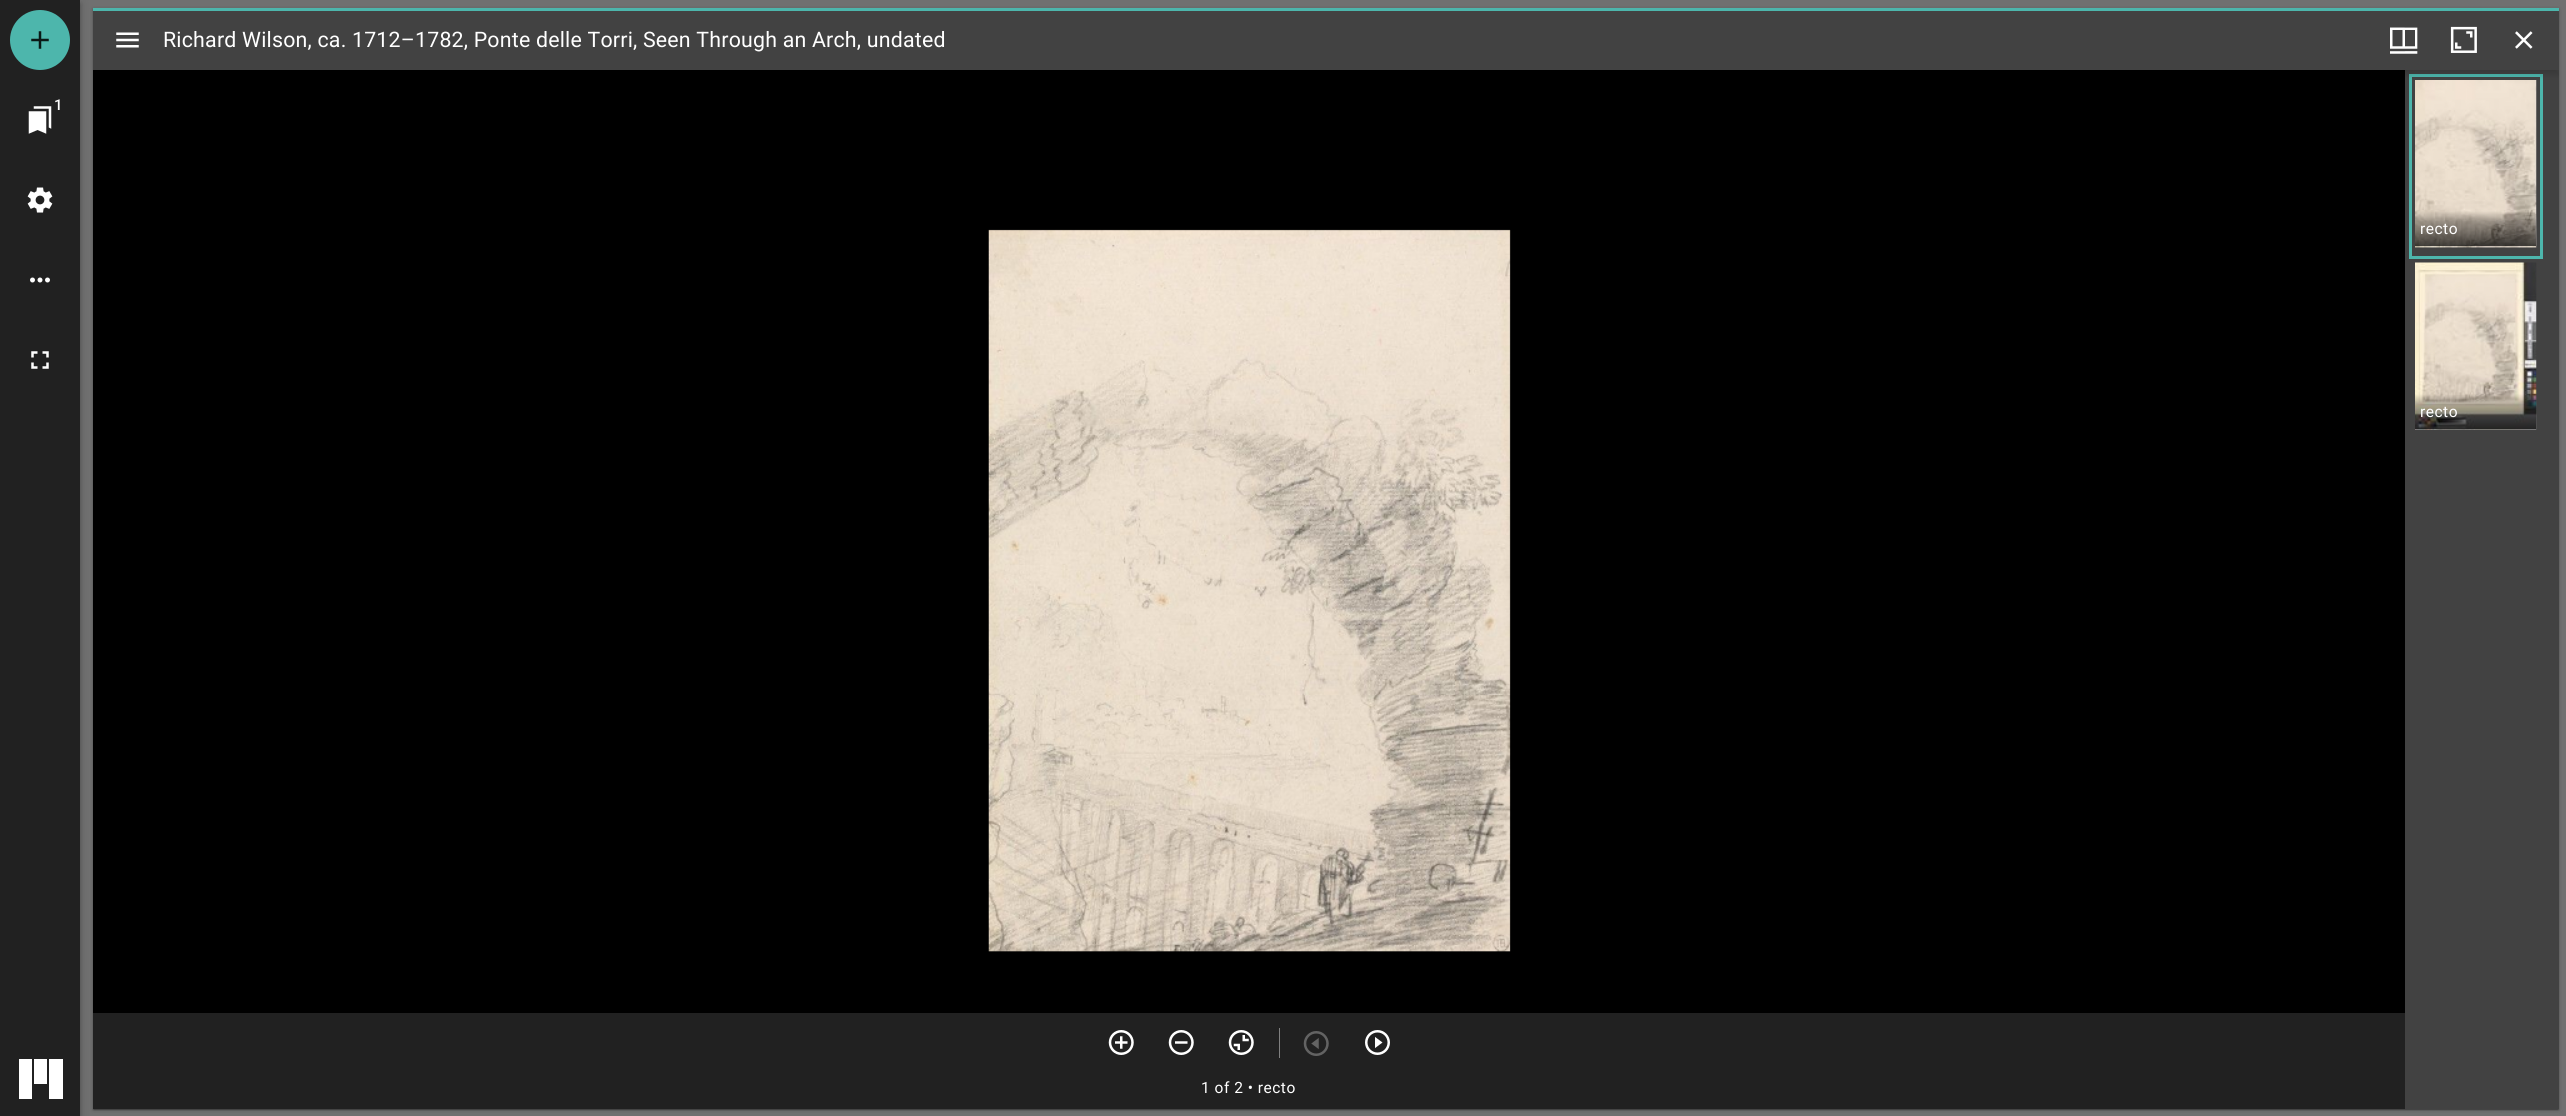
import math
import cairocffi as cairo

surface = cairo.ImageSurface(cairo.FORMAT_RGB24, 2566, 1116)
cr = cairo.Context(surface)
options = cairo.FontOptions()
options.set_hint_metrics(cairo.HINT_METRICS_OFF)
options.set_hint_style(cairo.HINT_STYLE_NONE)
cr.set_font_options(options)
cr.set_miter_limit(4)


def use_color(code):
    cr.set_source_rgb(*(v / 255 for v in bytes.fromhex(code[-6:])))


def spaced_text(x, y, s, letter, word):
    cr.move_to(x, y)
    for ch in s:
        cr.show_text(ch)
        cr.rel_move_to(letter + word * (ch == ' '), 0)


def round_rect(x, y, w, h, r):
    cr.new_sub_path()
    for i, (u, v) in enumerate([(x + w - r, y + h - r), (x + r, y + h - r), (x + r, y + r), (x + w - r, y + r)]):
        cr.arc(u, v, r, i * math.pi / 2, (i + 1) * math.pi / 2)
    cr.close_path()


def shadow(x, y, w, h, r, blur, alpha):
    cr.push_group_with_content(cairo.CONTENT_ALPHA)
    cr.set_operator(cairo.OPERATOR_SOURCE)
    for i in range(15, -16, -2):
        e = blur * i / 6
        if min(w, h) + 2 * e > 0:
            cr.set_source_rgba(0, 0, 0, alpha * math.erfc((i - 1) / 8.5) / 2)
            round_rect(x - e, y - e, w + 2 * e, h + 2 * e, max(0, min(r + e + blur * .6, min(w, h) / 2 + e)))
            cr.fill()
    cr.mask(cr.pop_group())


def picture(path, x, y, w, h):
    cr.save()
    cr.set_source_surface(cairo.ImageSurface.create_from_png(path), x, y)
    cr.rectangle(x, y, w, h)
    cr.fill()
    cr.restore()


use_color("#707070")
cr.paint()
use_color("#000000")
shadow(94, 11, 2464, 1099, 0, 0.5, 0.2)
shadow(93, 9, 2466, 1101, 0, 0.5, 0.2)
shadow(93, 9, 2466, 1101, 0, 2, 0.2)
use_color("#000000")
cr.rectangle(93, 70, 2312, 943)
cr.fill()
use_color("#424242")
cr.rectangle(2405, 70, 154, 1039)
cr.fill()
cr.rectangle(2410.5, 75.5, 131, 182)
use_color("#4db6ac")
cr.set_line_width(3)
cr.stroke()
picture("img10.png", 2415, 80, 122, 168)
cr.save()
cr.rectangle(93, 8, 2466, 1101)
cr.clip()
use_color("#000000")
shadow(93, 13, 2466, 62, 0, 3, 0.14)
cr.restore()
use_color("#424242")
cr.rectangle(93, 11, 2466, 59)
cr.fill()
use_color("#4db6ac")
cr.rectangle(93, 8, 2466, 3)
cr.fill()
use_color("#212121")
cr.rectangle(93, 1013, 2312, 96)
cr.fill()
use_color("#000000")
shadow(0, 1, 80, 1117, 0, 6, 0.12)
shadow(0, 5, 80, 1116, 0, 3, 0.14)
shadow(1, 4, 78, 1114, 0, 2.5, 0.2)
use_color("#212121")
cr.rectangle(0, 0, 80, 1116)
cr.fill()
use_color("#4db6ac")
cr.arc(40, 40, 30, 0, 2 * math.pi)
cr.fill()
picture("img1.png", 31, 31, 18, 18)
cr.select_font_face("Roboto Medium")
cr.set_font_size(15)
use_color("#ffffff")
cr.move_to(54, 110)
cr.show_text("1")
picture("img2.png", 28, 106, 24, 28)
picture("img3.png", 27, 187, 26, 26)
picture("img4.png", 30, 277, 20, 6)
picture("img5.png", 31, 351, 18, 18)
cr.rectangle(19, 1059, 13, 40)
cr.fill()
cr.rectangle(49, 1059, 14, 40)
cr.fill()
cr.rectangle(34, 1059, 13, 25)
cr.fill()
picture("img6.png", 116, 32, 23, 16)
cr.select_font_face("Roboto")
cr.set_font_size(21.35)
spaced_text(163, 47, "Richard Wilson, ca. 1712–1782, Ponte delle Torri, Seen Through an Arch, undated", 0.2, 0)
picture("img7.png", 2390, 27, 28, 27)
picture("img8.png", 2450, 26, 27, 27)
picture("img9.png", 2515, 31, 18, 18)
cr.set_font_size(15.5)
spaced_text(2420, 234, "recto", 0.5, 0)
picture("img11.png", 2415, 262, 122, 168)
spaced_text(2420, 417, "recto", 0.5, 0)
picture("img12.png", 988, 229, 523, 723)
picture("img13.png", 1108, 1030, 26, 25)
picture("img14.png", 1168, 1030, 26, 25)
picture("img15.png", 1228, 1030, 26, 25)
use_color("#808080")
cr.rectangle(1279, 1028, 1, 30)
cr.fill()
picture("img16.png", 1303, 1031, 26, 25)
picture("img17.png", 1365, 1030, 25, 25)
use_color("#ffffff")
spaced_text(1201, 1093, "1 of 2 • recto", 0.5, 0)
surface.write_to_png("result.png")
